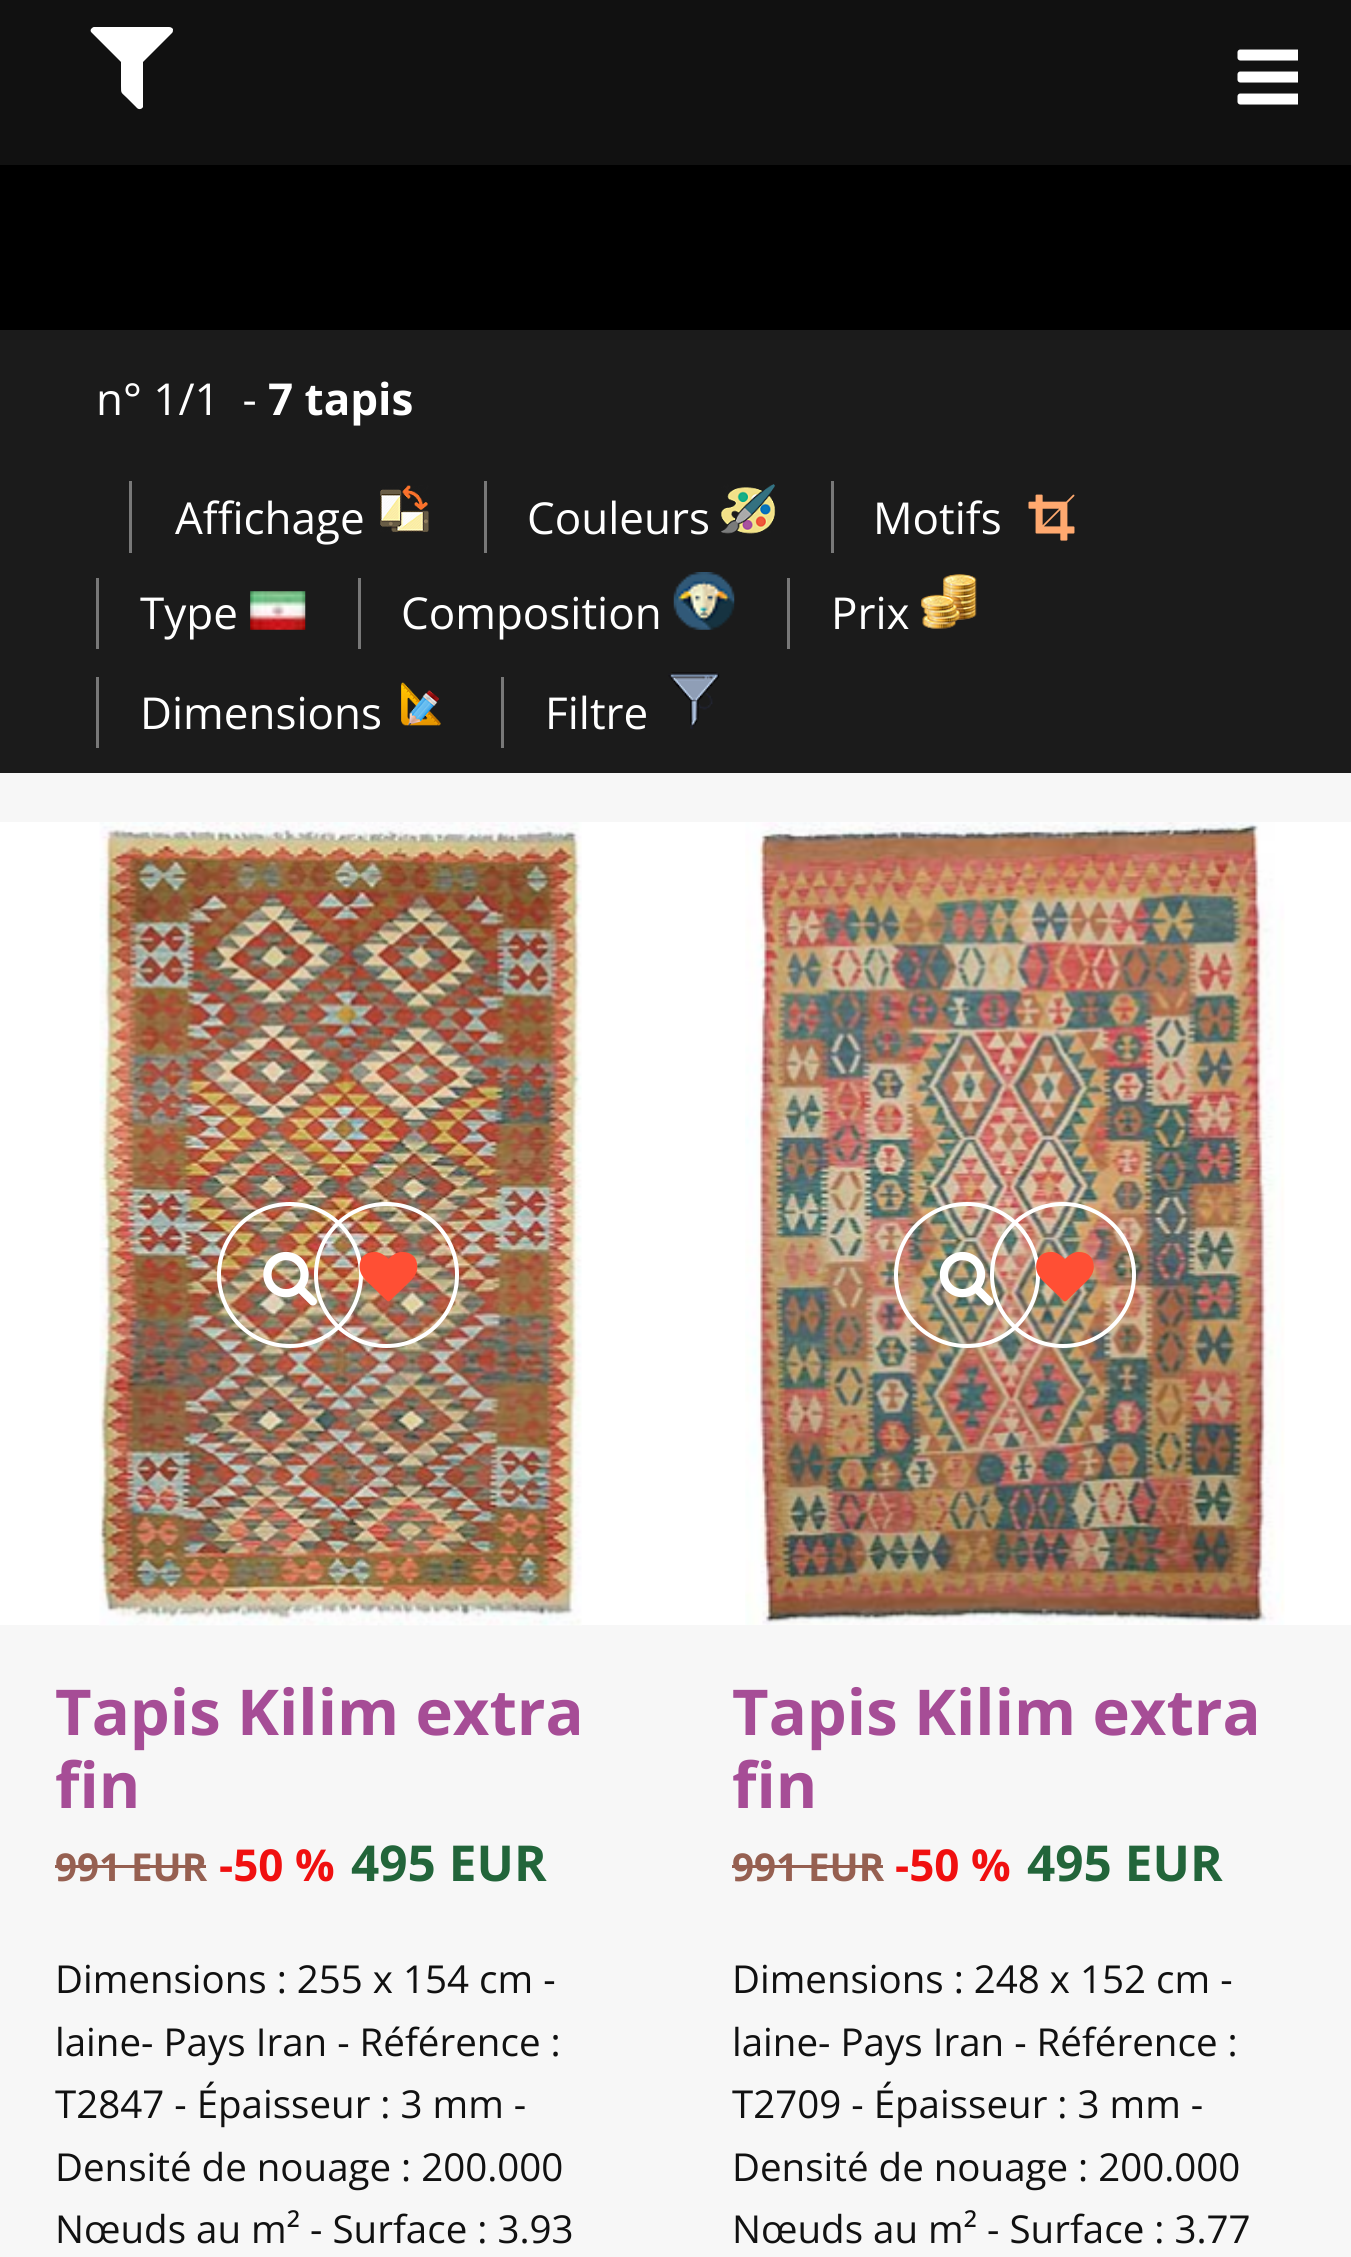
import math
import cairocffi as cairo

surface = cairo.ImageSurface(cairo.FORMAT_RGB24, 1351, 2257)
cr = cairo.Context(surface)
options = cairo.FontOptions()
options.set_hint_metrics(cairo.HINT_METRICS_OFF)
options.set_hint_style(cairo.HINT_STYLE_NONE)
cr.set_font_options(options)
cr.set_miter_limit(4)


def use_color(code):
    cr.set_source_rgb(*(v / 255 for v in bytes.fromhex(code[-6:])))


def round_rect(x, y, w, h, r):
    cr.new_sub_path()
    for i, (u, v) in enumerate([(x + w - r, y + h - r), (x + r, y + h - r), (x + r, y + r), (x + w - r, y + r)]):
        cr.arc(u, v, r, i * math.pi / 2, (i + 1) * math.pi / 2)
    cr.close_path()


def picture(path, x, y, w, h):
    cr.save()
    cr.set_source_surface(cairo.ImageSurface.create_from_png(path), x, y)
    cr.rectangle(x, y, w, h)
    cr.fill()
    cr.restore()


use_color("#000000")
cr.paint()
use_color("#111111")
cr.rectangle(0, 0, 1351, 165)
cr.fill()
use_color("#ffffff")
cr.new_path()
cr.move_to(91, 29)
cr.curve_to(92, 28, 93, 27, 94, 27)
cr.line_to(169, 27)
cr.curve_to(171, 27, 172, 28, 173, 29)
cr.curve_to(173, 31, 173, 32, 172, 33)
cr.line_to(143, 62)
cr.line_to(143, 107)
cr.curve_to(142, 109, 139, 110, 137, 108)
cr.line_to(127, 98)
cr.curve_to(121, 92, 121, 94, 121, 86)
cr.line_to(121, 62)
cr.line_to(92, 33)
cr.curve_to(91, 32, 90, 31, 91, 29)
cr.close_path()
cr.fill()
picture("img1.png", 1237, 49, 61, 56)
use_color("#1b1b1b")
cr.rectangle(0, 330, 1351, 443)
cr.fill()
cr.select_font_face("Open Sans")
cr.set_font_size(44)
use_color("#ffffff")
cr.move_to(96, 415)
cr.show_text("n° 1/1  -")
cr.select_font_face("Open Sans", cairo.FONT_SLANT_NORMAL, cairo.FONT_WEIGHT_BOLD)
cr.move_to(268, 415)
cr.show_text("7 tapis")
cr.select_font_face("Open Sans")
cr.move_to(175, 534)
cr.show_text("Affichage")
use_color("#787878")
cr.rectangle(129, 481, 3, 72)
cr.fill()
picture("img2.png", 380, 485, 49, 47)
use_color("#ffffff")
cr.move_to(527, 534)
cr.show_text("Couleurs")
use_color("#787878")
cr.rectangle(484, 481, 3, 72)
cr.fill()
picture("img3.png", 721, 484, 55, 50)
cr.rectangle(831, 481, 3, 72)
cr.fill()
use_color("#ffffff")
cr.move_to(873, 534)
cr.show_text("Motifs")
picture("img4.png", 1028, 494, 47, 47)
cr.move_to(140, 629)
cr.show_text("Type")
use_color("#787878")
cr.rectangle(96, 578, 3, 71)
cr.fill()
picture("img5.png", 250, 591, 56, 39)
use_color("#ffffff")
cr.move_to(401, 629)
cr.show_text("Composition")
use_color("#787878")
cr.rectangle(358, 578, 3, 71)
cr.fill()
picture("img6.png", 673, 572, 62, 58)
use_color("#ffffff")
cr.move_to(831, 629)
cr.show_text("Prix")
use_color("#787878")
cr.rectangle(787, 578, 3, 71)
cr.fill()
picture("img7.png", 921, 574, 56, 55)
use_color("#ffffff")
cr.move_to(140, 729)
cr.show_text("Dimensions")
use_color("#787878")
cr.rectangle(96, 677, 3, 71)
cr.fill()
picture("img8.png", 401, 682, 40, 44)
use_color("#ffffff")
cr.move_to(545, 729)
cr.show_text("Filtre")
use_color("#787878")
cr.rectangle(501, 677, 3, 71)
cr.fill()
picture("img9.png", 668, 672, 52, 57)
use_color("#f7f7f7")
cr.rectangle(0, 773, 1351, 1484)
cr.fill()
use_color("#ffffff")
cr.rectangle(0, 822, 1351, 803)
cr.fill()
picture("img10.png", 99, 822, 483, 804)
cr.arc(290, 1275, 71, 0, 2 * math.pi)
cr.set_line_width(4)
cr.stroke()
picture("img11.png", 263, 1251, 54, 55)
round_rect(316, 1204, 141, 142, 70.5)
cr.stroke()
picture("img12.png", 359, 1251, 59, 51)
cr.select_font_face("Open Sans", cairo.FONT_SLANT_NORMAL, cairo.FONT_WEIGHT_BOLD)
cr.set_font_size(63.25)
use_color("#a64d96")
cr.move_to(55, 1735)
cr.show_text("Tapis Kilim extra")
cr.move_to(55, 1808)
cr.show_text("fin")
cr.set_font_size(38.5)
use_color("#966051")
cr.move_to(55, 1881)
cr.show_text("991 EUR")
cr.rectangle(55, 1865, 151, 3)
cr.fill()
cr.set_font_size(44)
use_color("#f01010")
cr.move_to(219, 1881)
cr.show_text("-50 %")
cr.set_font_size(49.5)
use_color("#22653a")
cr.move_to(351, 1881)
cr.show_text("495 EUR")
cr.select_font_face("Open Sans")
cr.set_font_size(38.5)
use_color("#111111")
cr.move_to(55, 1993)
cr.show_text("Dimensions : 255 x 154 cm -")
cr.move_to(55, 2056)
cr.show_text("laine- Pays Iran - Référence :")
cr.move_to(55, 2118)
cr.show_text("T2847 - Épaisseur : 3 mm -")
cr.move_to(55, 2181)
cr.show_text("Densité de nouage : 200.000")
cr.move_to(55, 2243)
cr.show_text("Nœuds au m² - Surface : 3.93")
picture("img13.png", 745, 822, 540, 803)
cr.arc(967, 1275, 71, 0, 2 * math.pi)
use_color("#ffffff")
cr.stroke()
picture("img14.png", 939, 1251, 55, 55)
cr.arc(1063, 1275, 71, 0, 2 * math.pi)
cr.stroke()
picture("img15.png", 1036, 1251, 58, 51)
cr.select_font_face("Open Sans", cairo.FONT_SLANT_NORMAL, cairo.FONT_WEIGHT_BOLD)
cr.set_font_size(63.25)
use_color("#a64d96")
cr.move_to(732, 1735)
cr.show_text("Tapis Kilim extra")
cr.move_to(732, 1808)
cr.show_text("fin")
cr.set_font_size(38.5)
use_color("#966051")
cr.move_to(732, 1881)
cr.show_text("991 EUR")
cr.rectangle(732, 1865, 151, 3)
cr.fill()
cr.set_font_size(44)
use_color("#f01010")
cr.move_to(895, 1881)
cr.show_text("-50 %")
cr.set_font_size(49.5)
use_color("#22653a")
cr.move_to(1027, 1881)
cr.show_text("495 EUR")
cr.select_font_face("Open Sans")
cr.set_font_size(38.5)
use_color("#111111")
cr.move_to(732, 1993)
cr.show_text("Dimensions : 248 x 152 cm -")
cr.move_to(732, 2056)
cr.show_text("laine- Pays Iran - Référence :")
cr.move_to(732, 2118)
cr.show_text("T2709 - Épaisseur : 3 mm -")
cr.move_to(732, 2181)
cr.show_text("Densité de nouage : 200.000")
cr.move_to(732, 2243)
cr.show_text("Nœuds au m² - Surface : 3.77")
surface.write_to_png("result.png")
